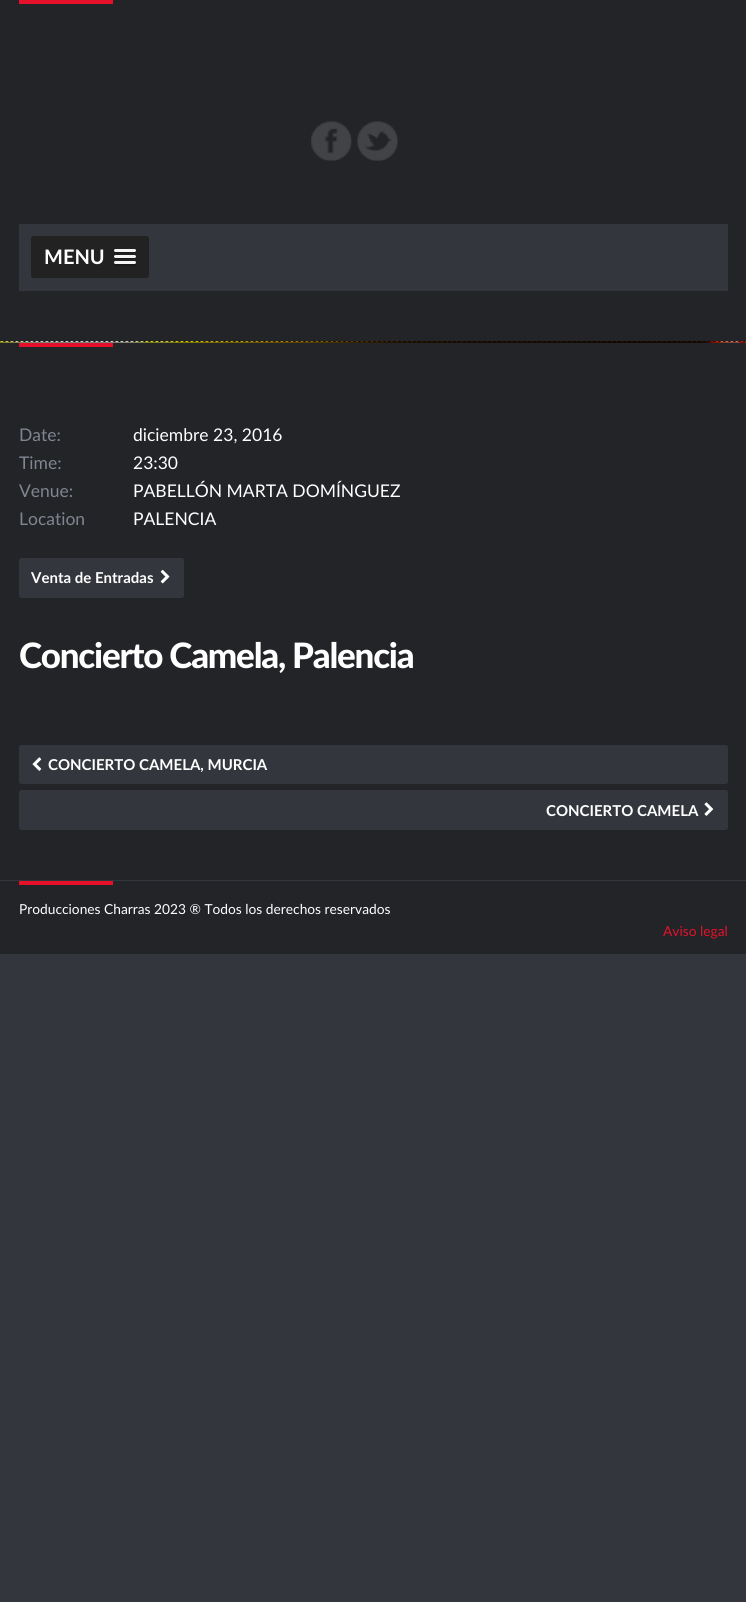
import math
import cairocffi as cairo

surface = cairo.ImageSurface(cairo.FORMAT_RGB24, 746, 1602)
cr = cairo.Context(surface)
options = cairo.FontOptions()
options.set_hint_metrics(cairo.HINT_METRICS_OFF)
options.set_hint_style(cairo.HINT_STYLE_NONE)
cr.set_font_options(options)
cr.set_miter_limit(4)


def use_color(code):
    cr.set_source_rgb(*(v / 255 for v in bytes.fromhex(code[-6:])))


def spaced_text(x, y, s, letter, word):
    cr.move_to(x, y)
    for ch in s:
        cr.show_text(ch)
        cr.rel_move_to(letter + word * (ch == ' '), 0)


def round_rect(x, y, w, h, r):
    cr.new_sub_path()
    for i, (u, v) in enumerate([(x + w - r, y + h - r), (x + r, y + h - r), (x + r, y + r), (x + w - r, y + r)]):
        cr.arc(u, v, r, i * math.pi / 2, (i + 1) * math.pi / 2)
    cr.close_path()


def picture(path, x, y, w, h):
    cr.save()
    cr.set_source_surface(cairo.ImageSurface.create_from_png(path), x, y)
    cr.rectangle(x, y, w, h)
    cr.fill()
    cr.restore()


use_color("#33363c")
cr.paint()
picture("img1.png", 0, 341, 746, 2)
use_color("#222428")
cr.rectangle(0, 0, 746, 341)
cr.fill()
use_color("#e5112b")
cr.rectangle(19, 0, 94, 4)
cr.fill()
picture("img2.png", 311, 121, 41, 40)
picture("img3.png", 357, 121, 41, 40)
use_color("#33363c")
cr.rectangle(19, 224, 709, 67)
cr.fill()
use_color("#222222")
round_rect(31, 236, 118, 42, 2.5)
cr.fill()
cr.select_font_face("Lato", cairo.FONT_SLANT_NORMAL, cairo.FONT_WEIGHT_BOLD)
cr.set_font_size(20)
use_color("#ffffff")
cr.move_to(44, 264)
cr.show_text("MENU")
use_color("#1a1a1a")
cr.new_path()
cr.move_to(114, 251)
cr.curve_to(113, 253.5, 118, 253, 118.5, 253)
cr.line_to(131.5, 253)
cr.curve_to(132, 253, 137, 253.5, 136, 251)
cr.curve_to(135, 251.5, 115, 251.5, 114, 251)
cr.close_path()
cr.fill()
use_color("#f5f5f5")
round_rect(114, 249, 22, 3, 1.5)
cr.fill()
use_color("#1a1a1a")
cr.new_path()
cr.move_to(114, 257)
cr.curve_to(113.5, 259.5, 118, 259, 118.5, 259)
cr.line_to(131.5, 259)
cr.curve_to(132, 259, 136.5, 259.5, 136, 257)
cr.curve_to(135, 258, 115, 258, 114, 257)
cr.close_path()
cr.fill()
use_color("#f5f5f5")
round_rect(114, 255, 22, 3, 1.5)
cr.fill()
use_color("#1a1a1a")
cr.new_path()
cr.move_to(114.5, 263.5)
cr.line_to(114, 265)
cr.curve_to(114.5, 266.5, 117.5, 266, 118.5, 266)
cr.line_to(131.5, 266)
cr.curve_to(132.5, 266, 135.5, 266.5, 136, 265)
cr.line_to(135.5, 263.5)
cr.close_path()
cr.fill()
use_color("#f5f5f5")
round_rect(114, 261, 22, 3, 1.5)
cr.fill()
use_color("#222428")
cr.rectangle(0, 343, 746, 537)
cr.fill()
use_color("#e5112b")
cr.rectangle(19, 343, 94, 4)
cr.fill()
cr.select_font_face("Lato")
cr.set_font_size(17.5)
use_color("#808590")
cr.move_to(19, 441)
cr.show_text("Date:")
use_color("#ffffff")
cr.move_to(133, 441)
cr.show_text("diciembre 23, 2016")
use_color("#808590")
cr.move_to(19, 469)
cr.show_text("Time:")
use_color("#ffffff")
cr.move_to(133, 469)
cr.show_text("23:30")
use_color("#808590")
cr.move_to(19, 497)
cr.show_text("Venue:")
use_color("#ffffff")
cr.move_to(133, 497)
cr.show_text("PABELLÓN MARTA DOMÍNGUEZ")
use_color("#808590")
cr.move_to(19, 525)
cr.show_text("Location")
use_color("#ffffff")
cr.move_to(133, 525)
cr.show_text("PALENCIA")
use_color("#33363c")
round_rect(19, 558, 165, 40, 2.5)
cr.fill()
cr.select_font_face("Lato", cairo.FONT_SLANT_NORMAL, cairo.FONT_WEIGHT_BOLD)
cr.set_font_size(15)
use_color("#ffffff")
cr.move_to(31, 583)
cr.show_text("Venta de Entradas")
picture("img4.png", 160, 569, 10, 15)
cr.select_font_face("Lato Black")
cr.set_font_size(35)
spaced_text(19, 668, "Concierto Camela, Palencia", -1.25, 0)
use_color("#33363c")
round_rect(19, 745, 709, 39, 2.5)
cr.fill()
picture("img5.png", 32, 757, 10, 14)
cr.select_font_face("Lato", cairo.FONT_SLANT_NORMAL, cairo.FONT_WEIGHT_BOLD)
cr.set_font_size(15)
use_color("#ffffff")
cr.move_to(48, 770)
cr.show_text("CONCIERTO CAMELA, MURCIA")
use_color("#33363c")
round_rect(19, 790, 709, 40, 2.5)
cr.fill()
use_color("#ffffff")
cr.move_to(546, 816)
cr.show_text("CONCIERTO CAMELA")
picture("img6.png", 704, 802, 10, 14)
use_color("#222428")
cr.rectangle(0, 881, 746, 73)
cr.fill()
use_color("#e5112b")
cr.rectangle(19, 881, 94, 4)
cr.fill()
cr.select_font_face("Lato")
cr.set_font_size(13.75)
use_color("#ffffff")
cr.move_to(19, 914)
cr.show_text("Producciones Charras 2023 ® Todos los derechos reservados")
use_color("#e5112b")
cr.move_to(663, 936)
cr.show_text("Aviso legal")
surface.write_to_png("result.png")
